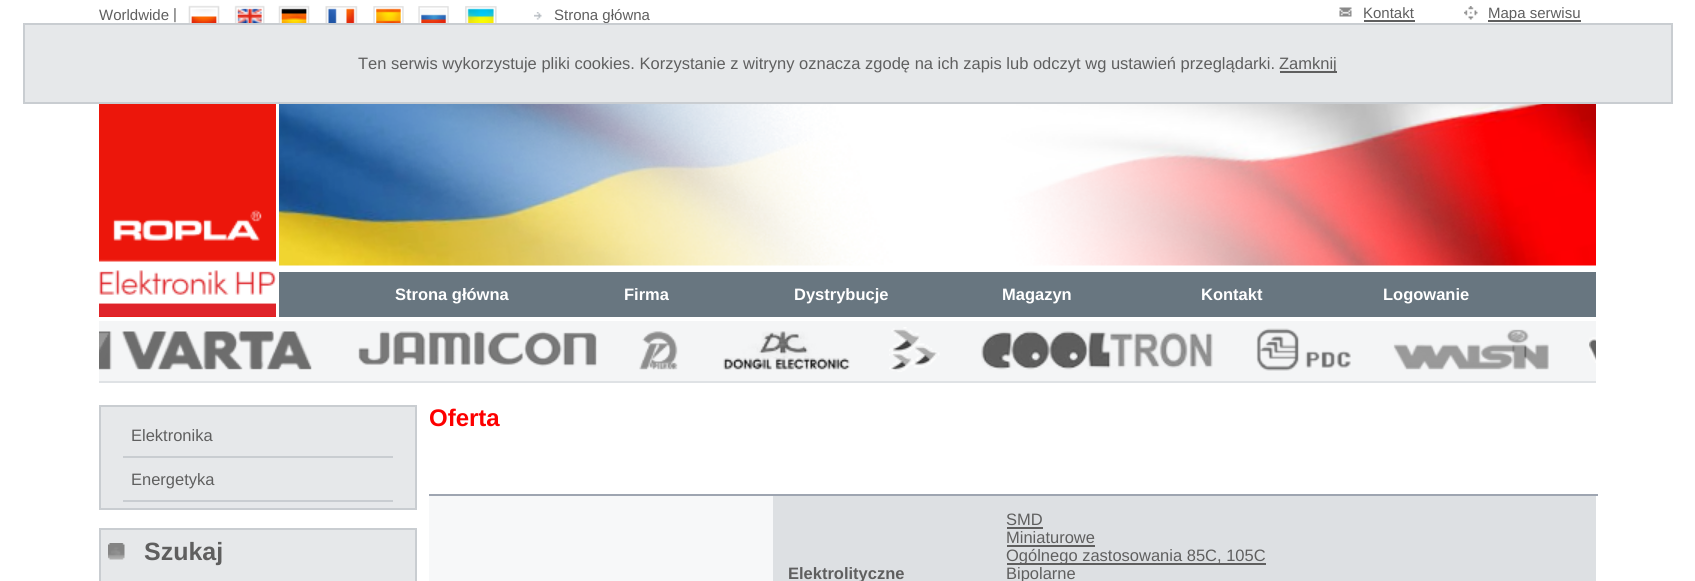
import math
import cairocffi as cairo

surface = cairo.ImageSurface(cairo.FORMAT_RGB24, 1695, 581)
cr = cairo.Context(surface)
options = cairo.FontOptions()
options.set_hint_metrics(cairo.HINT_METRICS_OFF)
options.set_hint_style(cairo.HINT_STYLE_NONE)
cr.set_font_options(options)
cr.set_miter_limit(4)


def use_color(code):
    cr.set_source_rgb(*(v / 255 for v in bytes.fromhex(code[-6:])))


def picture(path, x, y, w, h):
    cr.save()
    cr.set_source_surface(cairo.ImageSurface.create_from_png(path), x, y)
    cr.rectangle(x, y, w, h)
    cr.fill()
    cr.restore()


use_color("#ffffff")
cr.paint()
cr.select_font_face("Liberation Sans")
cr.set_font_size(15)
use_color("#5f5f5f")
cr.move_to(99, 20)
cr.show_text("Worldwide")
cr.move_to(173, 19)
cr.show_text("|")
picture("img1.png", 188, 5, 32, 18)
picture("img2.png", 234, 5, 31, 18)
picture("img3.png", 278, 5, 32, 18)
picture("img4.png", 325, 6, 33, 17)
picture("img5.png", 373, 6, 31, 17)
picture("img6.png", 418, 6, 31, 17)
picture("img7.png", 465, 6, 32, 17)
picture("img8.png", 534, 12, 8, 8)
cr.move_to(554, 20)
cr.show_text("Strona główna")
picture("img9.png", 1339, 7, 13, 10)
cr.move_to(1363, 18)
cr.show_text("Kontakt")
cr.rectangle(1364, 20, 51, 2)
cr.fill()
picture("img10.png", 1464, 6, 14, 14)
cr.rectangle(1488, 20, 93, 2)
cr.fill()
cr.move_to(1488, 18)
cr.show_text("Mapa serwisu")
use_color("#ec160b")
cr.rectangle(99, 104, 177, 213)
cr.fill()
picture("img11.png", 99, 210, 177, 107)
picture("img12.png", 279, 104, 1317, 162)
use_color("#687680")
cr.rectangle(279, 272, 1317, 45)
cr.fill()
cr.select_font_face("Liberation Sans", cairo.FONT_SLANT_NORMAL, cairo.FONT_WEIGHT_BOLD)
cr.set_font_size(16.5)
use_color("#ffffff")
cr.move_to(395, 300)
cr.show_text("Strona główna")
cr.move_to(624, 300)
cr.show_text("Firma")
cr.move_to(794, 300)
cr.show_text("Dystrybucje")
cr.move_to(1002, 300)
cr.show_text("Magazyn")
cr.move_to(1201, 300)
cr.show_text("Kontakt")
cr.move_to(1383, 300)
cr.show_text("Logowanie")
use_color("#f4f5f6")
cr.rectangle(99, 321, 1497, 60)
cr.fill()
use_color("#dfe2e5")
cr.rectangle(99, 381, 1497, 2)
cr.fill()
picture("img13.png", 99, 331, 213, 39)
picture("img14.png", 358, 331, 239, 36)
picture("img15.png", 639, 331, 39, 39)
picture("img16.png", 723, 331, 127, 39)
picture("img17.png", 889, 327, 51, 45)
picture("img18.png", 981, 331, 232, 39)
picture("img19.png", 1256, 328, 95, 43)
picture("img20.png", 1393, 329, 156, 41)
picture("img21.png", 1589, 337, 7, 26)
use_color("#e6e8ea")
cr.rectangle(100, 406, 316, 103)
cr.fill_preserve()
use_color("#c9cdd1")
cr.stroke()
cr.rectangle(123, 456, 270, 2)
cr.fill()
cr.select_font_face("Liberation Sans")
use_color("#5f5f5f")
cr.move_to(131, 441)
cr.show_text("Elektronika")
use_color("#c9cdd1")
cr.rectangle(123, 500, 270, 2)
cr.fill()
use_color("#5f5f5f")
cr.move_to(131, 485)
cr.show_text("Energetyka")
use_color("#e6e8ea")
cr.rectangle(100, 529, 316, 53)
cr.fill_preserve()
use_color("#c9cdd1")
cr.stroke()
picture("img22.png", 108, 543, 17, 17)
cr.select_font_face("Liberation Sans", cairo.FONT_SLANT_NORMAL, cairo.FONT_WEIGHT_BOLD)
cr.set_font_size(25)
use_color("#5f5f5f")
cr.move_to(144, 560)
cr.show_text("Szukaj")
cr.set_font_size(24)
use_color("#fd0000")
cr.move_to(429, 426)
cr.show_text("Oferta")
use_color("#9ea5b1")
cr.rectangle(429, 494, 1169, 2)
cr.fill()
use_color("#f7f8f9")
cr.rectangle(429, 496, 344, 85)
cr.fill()
use_color("#dde0e3")
cr.rectangle(773, 496, 823, 85)
cr.fill()
cr.set_font_size(16.5)
use_color("#5f5f5f")
cr.move_to(788, 579)
cr.show_text("Elektrolityczne")
cr.select_font_face("Liberation Sans")
cr.move_to(1006, 525)
cr.show_text("SMD")
cr.rectangle(1007, 527, 36, 2)
cr.fill()
cr.move_to(1006, 543)
cr.show_text("Miniaturowe")
cr.rectangle(1007, 545, 88, 2)
cr.fill()
cr.rectangle(1007, 563, 259, 2)
cr.fill()
cr.move_to(1006, 561)
cr.show_text("Ogólnego zastosowania 85C, 105C")
cr.move_to(1006, 579)
cr.show_text("Bipolarne")
use_color("#e6e8ea")
cr.rectangle(24, 24, 1648, 79)
cr.fill_preserve()
use_color("#c9cdd1")
cr.stroke()
use_color("#5f5f5f")
cr.move_to(358, 69)
cr.show_text("Ten serwis wykorzystuje pliki cookies. Korzystanie z witryny oznacza zgodę na ich zapis lub odczyt wg ustawień przeglądarki.")
cr.rectangle(1280, 71, 57, 2)
cr.fill()
cr.move_to(1279, 69)
cr.show_text("Zamknij")
surface.write_to_png("result.png")
